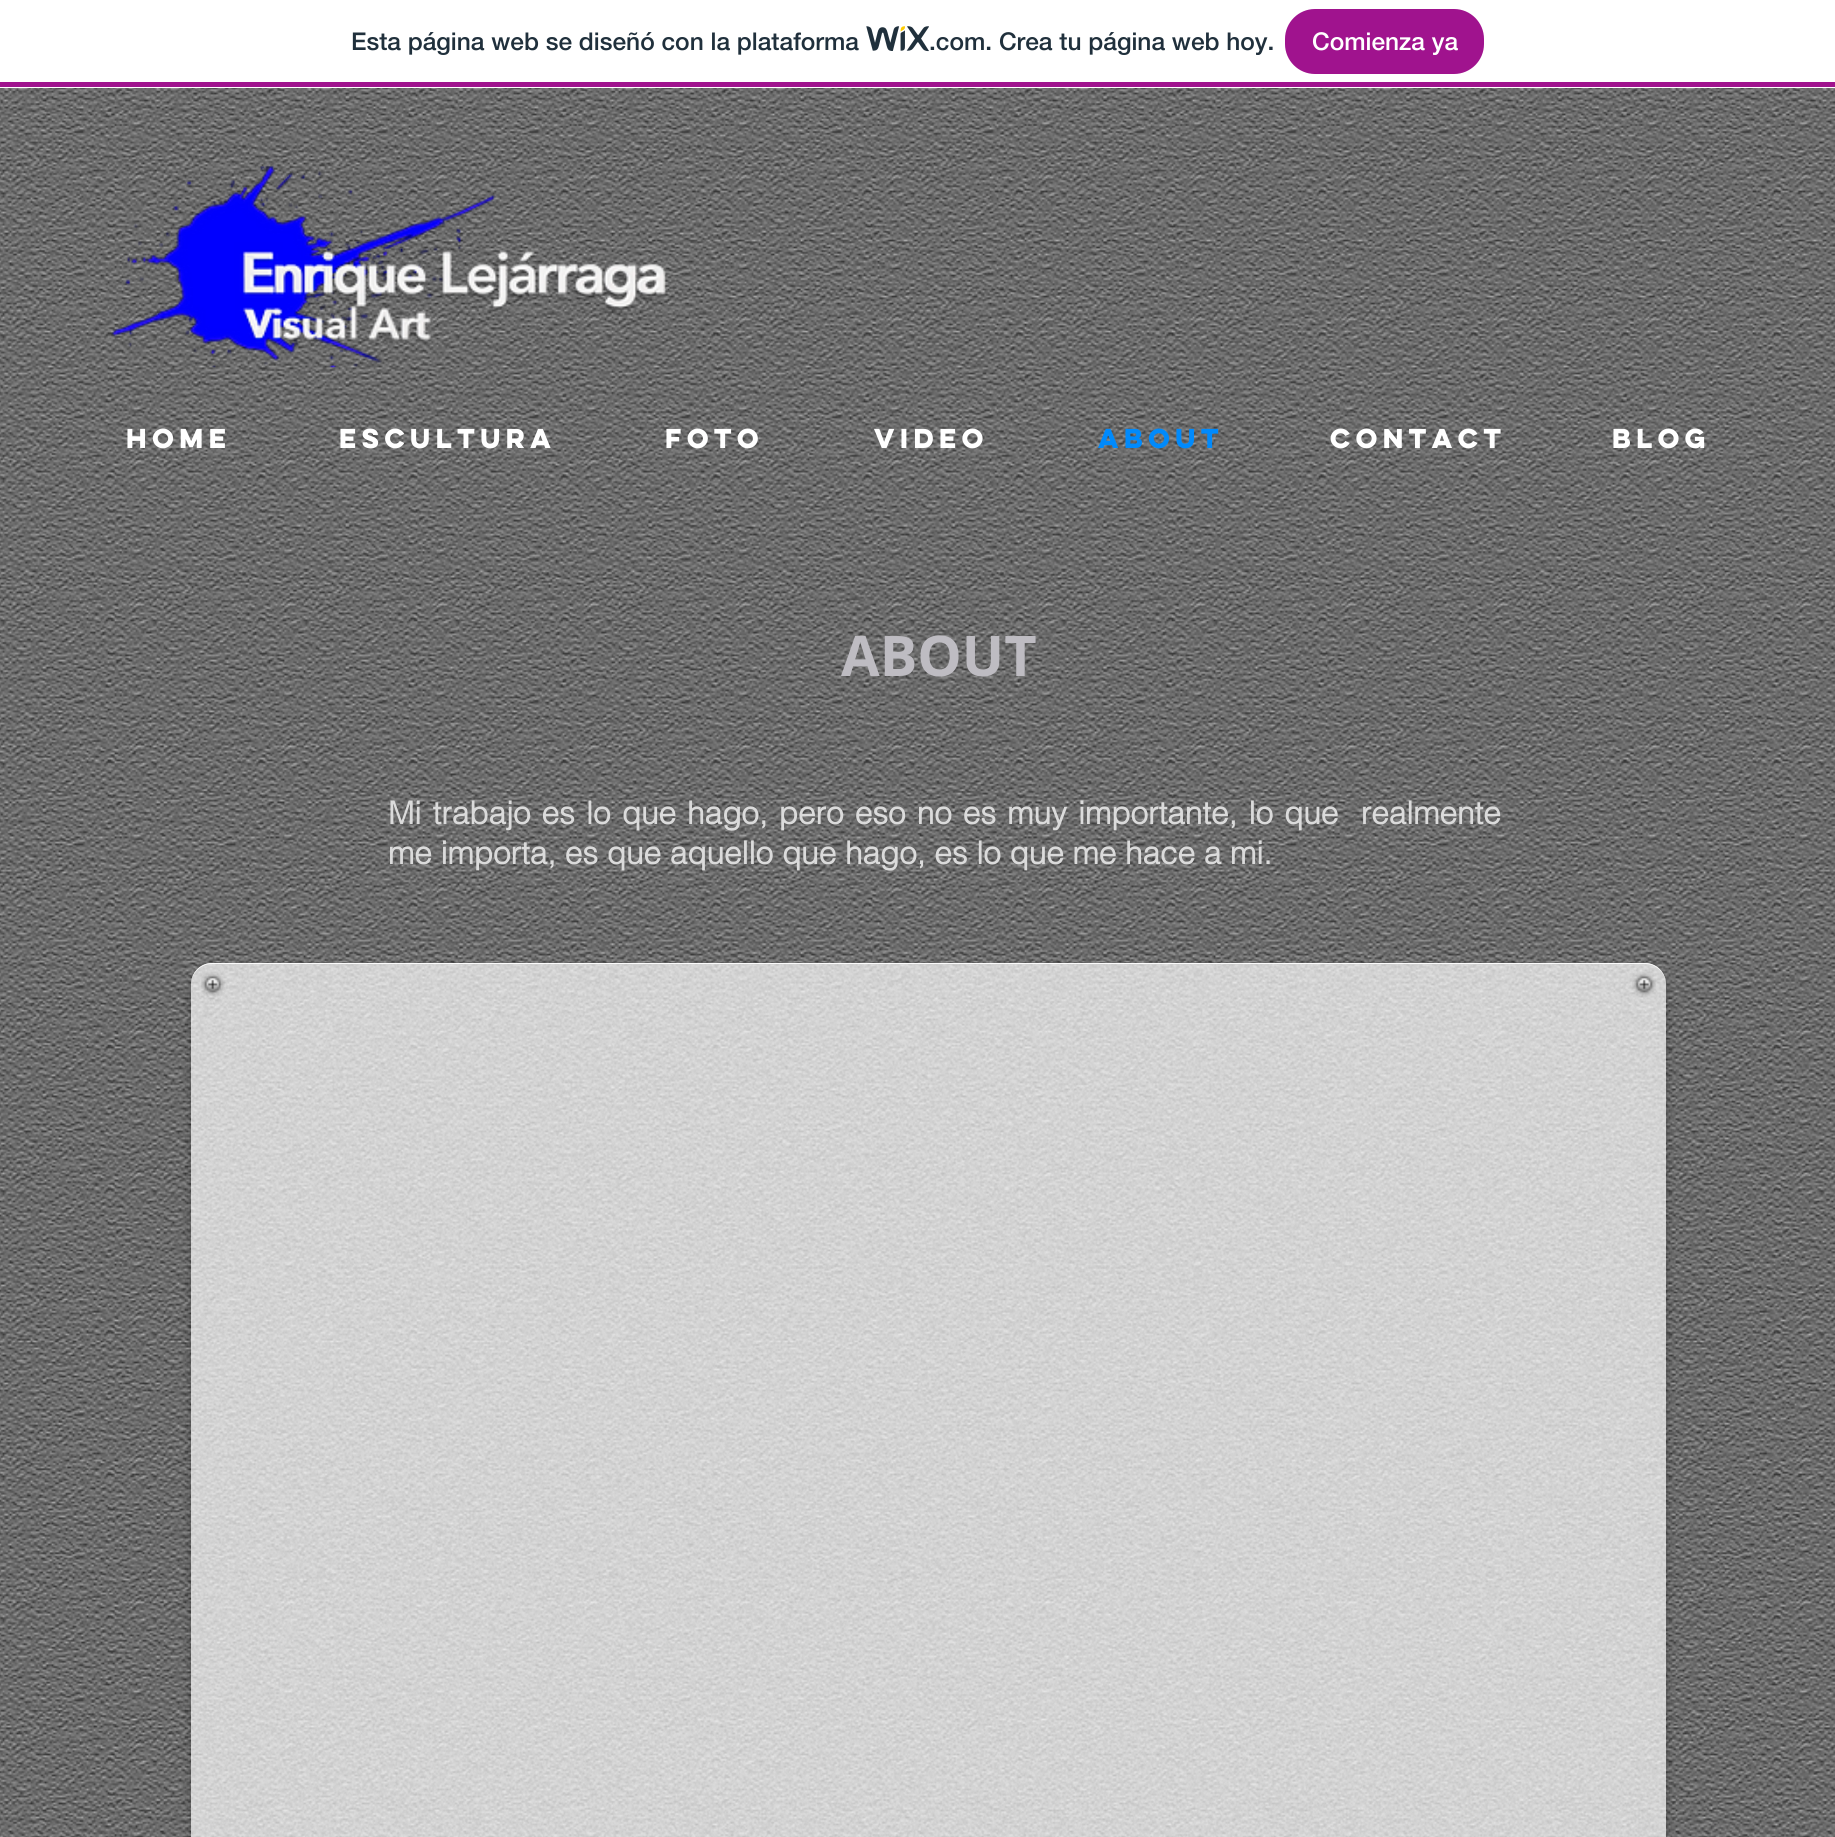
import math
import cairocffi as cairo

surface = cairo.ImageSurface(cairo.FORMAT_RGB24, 1835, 1837)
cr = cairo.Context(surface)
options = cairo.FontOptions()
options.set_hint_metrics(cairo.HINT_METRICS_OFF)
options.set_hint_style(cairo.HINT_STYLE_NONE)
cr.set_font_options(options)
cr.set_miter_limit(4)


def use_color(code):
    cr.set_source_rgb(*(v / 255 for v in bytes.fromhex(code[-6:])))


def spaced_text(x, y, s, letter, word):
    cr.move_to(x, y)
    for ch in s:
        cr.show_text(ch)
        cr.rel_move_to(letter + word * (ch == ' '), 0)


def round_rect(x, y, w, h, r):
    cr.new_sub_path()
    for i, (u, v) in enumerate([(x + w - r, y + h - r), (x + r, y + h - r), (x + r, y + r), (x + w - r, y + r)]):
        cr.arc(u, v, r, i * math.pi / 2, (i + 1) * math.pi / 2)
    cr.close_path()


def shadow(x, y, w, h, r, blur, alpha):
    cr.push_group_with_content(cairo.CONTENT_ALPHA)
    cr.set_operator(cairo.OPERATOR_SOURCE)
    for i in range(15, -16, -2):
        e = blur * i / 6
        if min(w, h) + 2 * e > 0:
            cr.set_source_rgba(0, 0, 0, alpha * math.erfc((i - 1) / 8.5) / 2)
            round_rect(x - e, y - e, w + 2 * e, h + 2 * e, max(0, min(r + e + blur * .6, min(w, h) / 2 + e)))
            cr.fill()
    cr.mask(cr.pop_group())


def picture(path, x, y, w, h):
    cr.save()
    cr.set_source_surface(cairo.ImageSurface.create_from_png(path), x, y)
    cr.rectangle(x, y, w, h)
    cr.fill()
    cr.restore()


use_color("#ffffff")
cr.paint()
use_color("#a0138e")
cr.rectangle(0, 82, 1835, 5)
cr.fill()
cr.select_font_face("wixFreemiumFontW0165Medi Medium")
cr.set_font_size(24.5)
use_color("#20303c")
cr.move_to(351, 50)
cr.show_text("Esta página web se diseñó con la plataforma")
picture("img1.png", 866, 26, 63, 26)
cr.move_to(929, 50)
cr.show_text(".com. Crea tu página web hoy.")
use_color("#a0138e")
round_rect(1286, 10, 197, 63, 29)
cr.fill_preserve()
cr.stroke()
use_color("#ffffff")
cr.move_to(1312, 50)
cr.show_text("Comienza ya")
picture("img2.png", 0, 88, 1835, 1749)
picture("img3.png", 111, 166, 556, 202)
cr.select_font_face("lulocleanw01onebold", cairo.FONT_SLANT_NORMAL, cairo.FONT_WEIGHT_BOLD)
cr.move_to(126, 448)
cr.show_text("HOME")
cr.move_to(339, 448)
cr.show_text("ESCULTURA")
cr.move_to(665, 448)
cr.show_text("FOTO")
cr.move_to(874, 448)
cr.show_text("VIDEO")
use_color("#008afc")
cr.move_to(1098, 448)
cr.show_text("ABOUT")
use_color("#ffffff")
cr.move_to(1330, 448)
cr.show_text("CONTACT")
cr.move_to(1612, 448)
cr.show_text("Blog")
cr.select_font_face("Open Sans", cairo.FONT_SLANT_NORMAL, cairo.FONT_WEIGHT_BOLD)
cr.set_font_size(56)
use_color("#bebcc2")
cr.move_to(841, 676)
cr.show_text("ABOUT")
cr.select_font_face("helvetica", cairo.FONT_SLANT_NORMAL, cairo.FONT_WEIGHT_BOLD)
cr.set_font_size(31.5)
use_color("#dbdbdb")
spaced_text(388, 824, "Mi trabajo es lo que hago, pero eso no es muy importante, lo que  realmente", 0, 2.4)
cr.move_to(388, 864)
cr.show_text("me importa, es que aquello que hago, es lo que me hace a mi.")
cr.save()
cr.set_fill_rule(cairo.FILL_RULE_EVEN_ODD)
cr.new_path()
cr.move_to(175, 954)
cr.line_to(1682, 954)
cr.line_to(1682, 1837)
cr.line_to(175, 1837)
cr.close_path()
cr.move_to(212, 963)
cr.line_to(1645, 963)
cr.curve_to(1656.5, 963, 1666, 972.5, 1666, 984)
cr.line_to(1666, 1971)
cr.curve_to(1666, 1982.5, 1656.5, 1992, 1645, 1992)
cr.line_to(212, 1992)
cr.curve_to(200.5, 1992, 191, 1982.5, 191, 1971)
cr.line_to(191, 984)
cr.curve_to(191, 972.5, 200.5, 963, 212, 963)
cr.close_path()
cr.clip()
use_color("#030303")
shadow(194, 973, 1469, 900, 18, 6, 0.53)
cr.restore()
cr.set_source_rgba(1, 1, 1, 0.74)
round_rect(191, 963, 1475, 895, 21)
cr.fill()
picture("img4.png", 191, 963, 1475, 874)
cr.set_source_rgba(1, 1, 1, 0.92)
cr.new_path()
cr.move_to(212, 964)
cr.line_to(1645, 964)
cr.curve_to(1657, 964, 1666, 974, 1666, 985)
cr.curve_to(1666, 973, 1657, 963, 1645, 963)
cr.line_to(212, 963)
cr.curve_to(200, 963, 191, 973, 191, 985)
cr.curve_to(191, 974, 200, 964, 212, 964)
cr.close_path()
cr.fill()
picture("img5.png", 201, 972, 24, 25)
picture("img6.png", 1632, 972, 24, 25)
surface.write_to_png("result.png")
